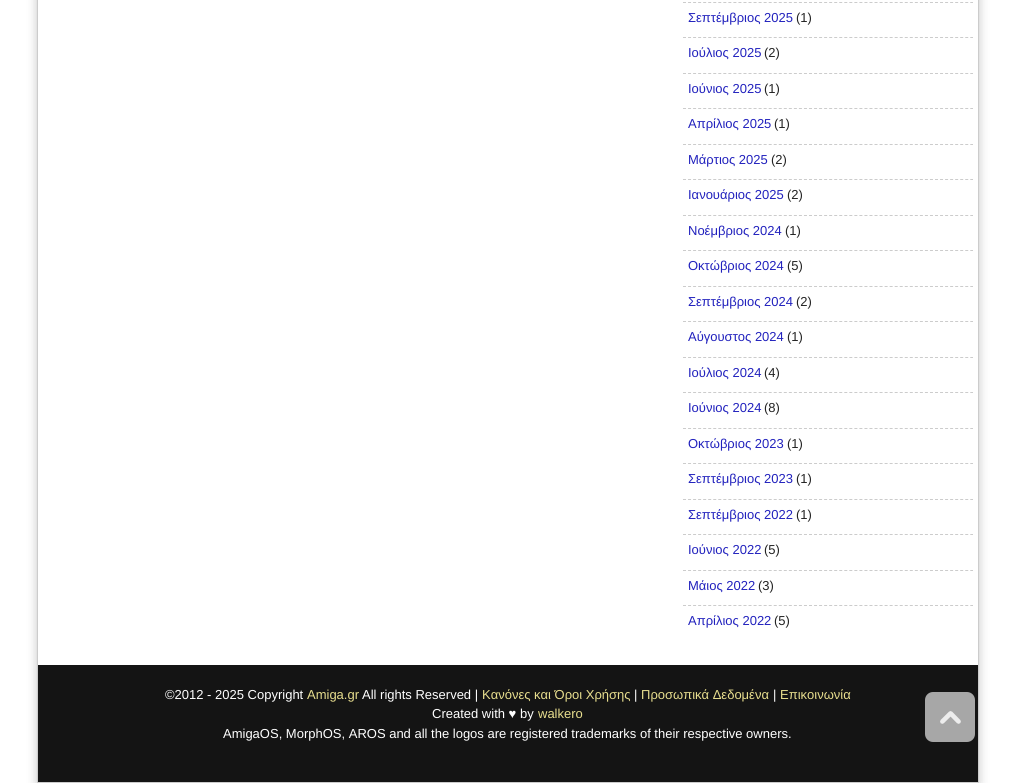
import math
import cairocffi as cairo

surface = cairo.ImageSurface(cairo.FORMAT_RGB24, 1015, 783)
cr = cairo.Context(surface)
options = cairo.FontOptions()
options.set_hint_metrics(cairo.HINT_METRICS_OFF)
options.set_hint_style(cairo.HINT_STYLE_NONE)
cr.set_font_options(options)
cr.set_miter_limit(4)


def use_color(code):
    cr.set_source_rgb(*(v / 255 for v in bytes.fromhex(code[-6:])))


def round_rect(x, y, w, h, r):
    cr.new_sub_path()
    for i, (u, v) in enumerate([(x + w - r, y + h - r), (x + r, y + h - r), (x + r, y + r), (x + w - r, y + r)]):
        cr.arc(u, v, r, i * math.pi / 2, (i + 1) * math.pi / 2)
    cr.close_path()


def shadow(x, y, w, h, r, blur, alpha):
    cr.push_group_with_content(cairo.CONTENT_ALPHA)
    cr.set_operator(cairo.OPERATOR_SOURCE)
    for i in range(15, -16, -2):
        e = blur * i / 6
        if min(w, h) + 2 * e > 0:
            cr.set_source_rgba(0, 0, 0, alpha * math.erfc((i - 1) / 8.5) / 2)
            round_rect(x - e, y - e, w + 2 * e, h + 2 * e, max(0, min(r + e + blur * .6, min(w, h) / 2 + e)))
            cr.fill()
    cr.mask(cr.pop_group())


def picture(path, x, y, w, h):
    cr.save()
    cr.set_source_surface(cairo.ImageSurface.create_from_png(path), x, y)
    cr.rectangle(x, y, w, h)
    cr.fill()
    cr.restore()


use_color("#ffffff")
cr.paint()
cr.save()
cr.set_fill_rule(cairo.FILL_RULE_EVEN_ODD)
cr.new_path()
cr.move_to(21, 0)
cr.line_to(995, 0)
cr.line_to(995, 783)
cr.line_to(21, 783)
cr.close_path()
cr.move_to(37, -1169)
cr.line_to(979, -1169)
cr.line_to(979, 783)
cr.line_to(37, 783)
cr.close_path()
cr.clip()
use_color("#c5c5c5")
shadow(37, -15, 942, 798, 0, 5, 1)
cr.restore()
cr.rectangle(37.5, -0.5, 941, 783)
use_color("#cccccc")
cr.set_line_width(1)
cr.stroke()
cr.new_path()
cr.move_to(683, 2.5)
cr.line_to(973, 2.5)
cr.set_dash([3, 2.04])
cr.stroke()
cr.select_font_face("Liberation Sans")
cr.set_font_size(13)
use_color("#2121bd")
cr.move_to(688, 22)
cr.show_text("Σεπτέμβριος 2025")
use_color("#222222")
cr.move_to(796, 22)
cr.show_text("(1)")
cr.new_path()
cr.move_to(683, 37.5)
cr.line_to(973, 37.5)
use_color("#cccccc")
cr.stroke()
use_color("#2121bd")
cr.move_to(688, 57)
cr.show_text("Ιούλιος 2025")
use_color("#222222")
cr.move_to(764, 57)
cr.show_text("(2)")
cr.new_path()
cr.move_to(683, 73.5)
cr.line_to(973, 73.5)
use_color("#cccccc")
cr.stroke()
use_color("#2121bd")
cr.move_to(688, 93)
cr.show_text("Ιούνιος 2025")
use_color("#222222")
cr.move_to(764, 93)
cr.show_text("(1)")
cr.new_path()
cr.move_to(683, 108.5)
cr.line_to(973, 108.5)
use_color("#cccccc")
cr.stroke()
use_color("#2121bd")
cr.move_to(688, 128)
cr.show_text("Απρίλιος 2025")
use_color("#222222")
cr.move_to(774, 128)
cr.show_text("(1)")
cr.new_path()
cr.move_to(683, 144.5)
cr.line_to(973, 144.5)
use_color("#cccccc")
cr.stroke()
use_color("#2121bd")
cr.move_to(688, 164)
cr.show_text("Μάρτιος 2025")
use_color("#222222")
cr.move_to(771, 164)
cr.show_text("(2)")
cr.new_path()
cr.move_to(683, 179.5)
cr.line_to(973, 179.5)
use_color("#cccccc")
cr.stroke()
use_color("#2121bd")
cr.move_to(688, 199)
cr.show_text("Ιανουάριος 2025")
use_color("#222222")
cr.move_to(787, 199)
cr.show_text("(2)")
cr.new_path()
cr.move_to(683, 215.5)
cr.line_to(973, 215.5)
use_color("#cccccc")
cr.stroke()
use_color("#2121bd")
cr.move_to(688, 235)
cr.show_text("Νοέμβριος 2024")
use_color("#222222")
cr.move_to(785, 235)
cr.show_text("(1)")
cr.new_path()
cr.move_to(683, 250.5)
cr.line_to(973, 250.5)
use_color("#cccccc")
cr.stroke()
use_color("#2121bd")
cr.move_to(688, 270)
cr.show_text("Οκτώβριος 2024")
use_color("#222222")
cr.move_to(787, 270)
cr.show_text("(5)")
cr.new_path()
cr.move_to(683, 286.5)
cr.line_to(973, 286.5)
use_color("#cccccc")
cr.stroke()
use_color("#2121bd")
cr.move_to(688, 306)
cr.show_text("Σεπτέμβριος 2024")
use_color("#222222")
cr.move_to(796, 306)
cr.show_text("(2)")
cr.new_path()
cr.move_to(683, 321.5)
cr.line_to(973, 321.5)
use_color("#cccccc")
cr.stroke()
use_color("#2121bd")
cr.move_to(688, 341)
cr.show_text("Αύγουστος 2024")
use_color("#222222")
cr.move_to(787, 341)
cr.show_text("(1)")
cr.new_path()
cr.move_to(683, 357.5)
cr.line_to(973, 357.5)
use_color("#cccccc")
cr.stroke()
use_color("#2121bd")
cr.move_to(688, 377)
cr.show_text("Ιούλιος 2024")
use_color("#222222")
cr.move_to(764, 377)
cr.show_text("(4)")
cr.new_path()
cr.move_to(683, 392.5)
cr.line_to(973, 392.5)
use_color("#cccccc")
cr.stroke()
use_color("#2121bd")
cr.move_to(688, 412)
cr.show_text("Ιούνιος 2024")
use_color("#222222")
cr.move_to(764, 412)
cr.show_text("(8)")
cr.new_path()
cr.move_to(683, 428.5)
cr.line_to(973, 428.5)
use_color("#cccccc")
cr.stroke()
use_color("#2121bd")
cr.move_to(688, 448)
cr.show_text("Οκτώβριος 2023")
use_color("#222222")
cr.move_to(787, 448)
cr.show_text("(1)")
cr.new_path()
cr.move_to(683, 463.5)
cr.line_to(973, 463.5)
use_color("#cccccc")
cr.stroke()
use_color("#2121bd")
cr.move_to(688, 483)
cr.show_text("Σεπτέμβριος 2023")
use_color("#222222")
cr.move_to(796, 483)
cr.show_text("(1)")
cr.new_path()
cr.move_to(683, 499.5)
cr.line_to(973, 499.5)
use_color("#cccccc")
cr.stroke()
use_color("#2121bd")
cr.move_to(688, 519)
cr.show_text("Σεπτέμβριος 2022")
use_color("#222222")
cr.move_to(796, 519)
cr.show_text("(1)")
cr.new_path()
cr.move_to(683, 534.5)
cr.line_to(973, 534.5)
use_color("#cccccc")
cr.stroke()
use_color("#2121bd")
cr.move_to(688, 554)
cr.show_text("Ιούνιος 2022")
use_color("#222222")
cr.move_to(764, 554)
cr.show_text("(5)")
cr.new_path()
cr.move_to(683, 570.5)
cr.line_to(973, 570.5)
use_color("#cccccc")
cr.stroke()
use_color("#2121bd")
cr.move_to(688, 590)
cr.show_text("Μάιος 2022")
use_color("#222222")
cr.move_to(758, 590)
cr.show_text("(3)")
cr.new_path()
cr.move_to(683, 605.5)
cr.line_to(973, 605.5)
use_color("#cccccc")
cr.stroke()
use_color("#2121bd")
cr.move_to(688, 625)
cr.show_text("Απρίλιος 2022")
use_color("#222222")
cr.move_to(774, 625)
cr.show_text("(5)")
use_color("#141414")
cr.rectangle(38, 665, 940, 117)
cr.fill()
use_color("#ffffff")
cr.move_to(165, 699)
cr.show_text("©2012 - 2025 Copyright")
use_color("#e8de8e")
cr.move_to(307, 699)
cr.show_text("Amiga.gr")
use_color("#ffffff")
cr.move_to(362, 699)
cr.show_text("All rights Reserved |")
use_color("#e8de8e")
cr.move_to(482, 699)
cr.show_text("Κανόνες και Όροι Χρήσης")
use_color("#ffffff")
cr.move_to(634, 699)
cr.show_text("|")
use_color("#e8de8e")
cr.move_to(641, 699)
cr.show_text("Προσωπικά Δεδομένα")
use_color("#ffffff")
cr.move_to(773, 699)
cr.show_text("|")
use_color("#e8de8e")
cr.move_to(780, 699)
cr.show_text("Επικοινωνία")
use_color("#ffffff")
cr.move_to(432, 718)
cr.show_text("Created with ♥ by")
use_color("#e8de8e")
cr.move_to(538, 718)
cr.show_text("walkero")
use_color("#ffffff")
cr.move_to(223, 738)
cr.show_text("AmigaOS, MorphOS, AROS and all the logos are registered trademarks of their respective owners.")
use_color("#a7a7a7")
round_rect(925, 692, 50, 50, 8)
cr.fill()
picture("img1.png", 940, 711, 21, 13)
surface.write_to_png("result.png")
